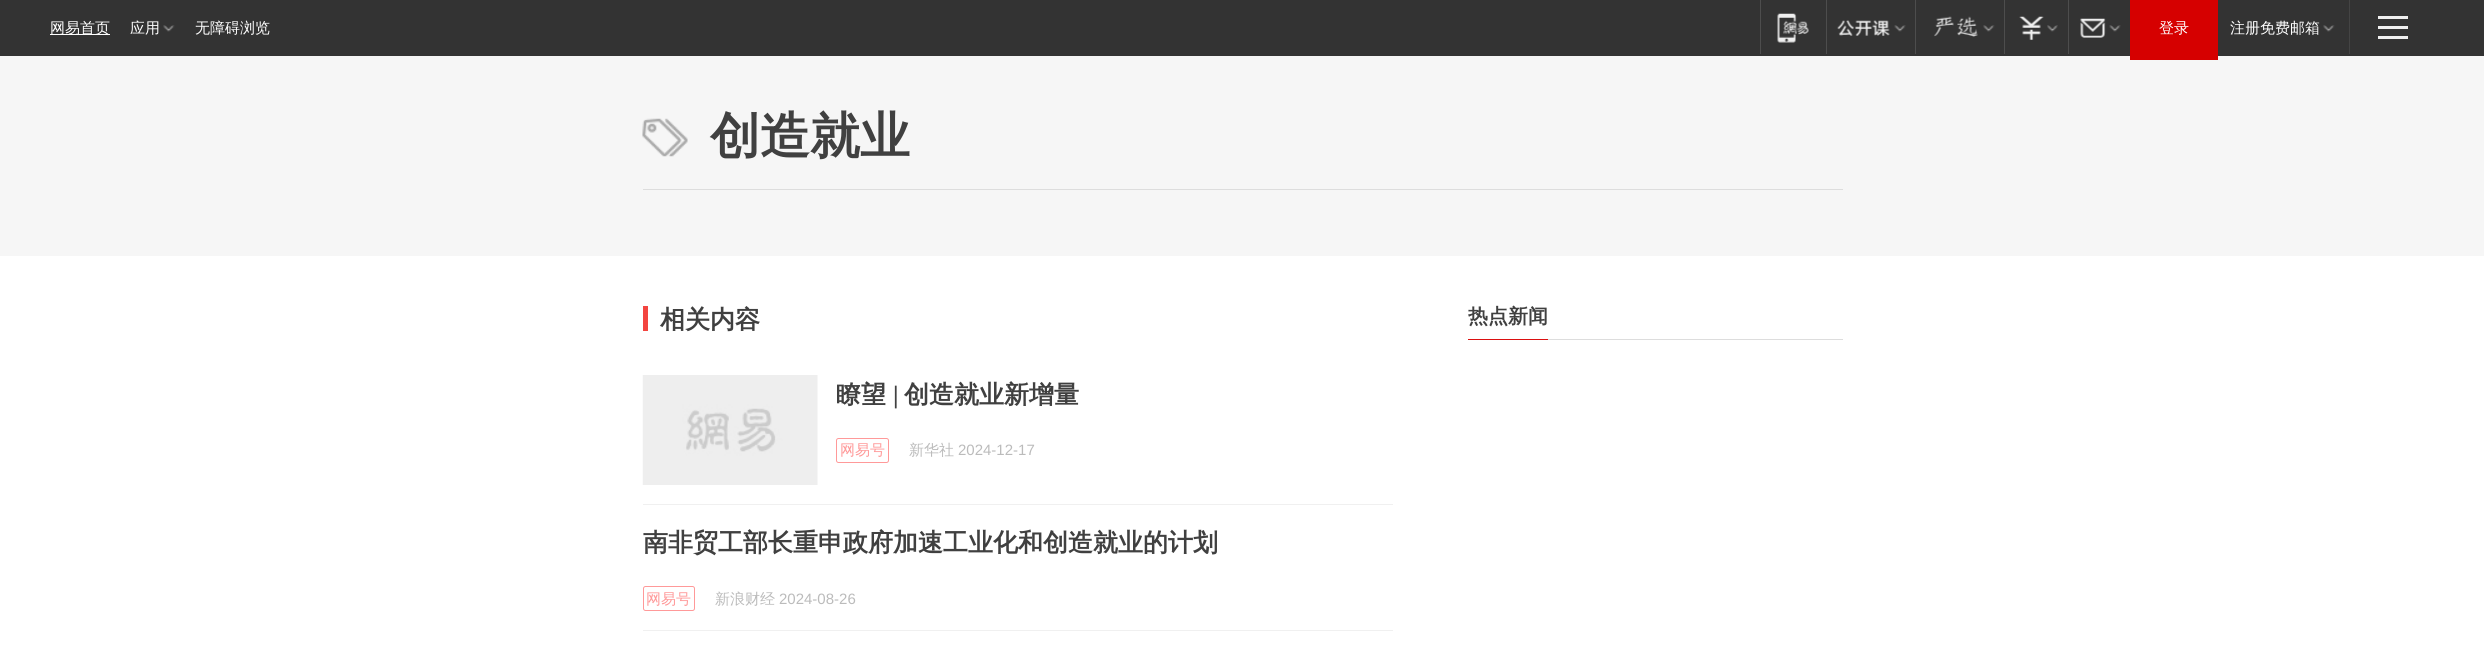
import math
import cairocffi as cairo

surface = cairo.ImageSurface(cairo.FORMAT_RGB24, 2484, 650)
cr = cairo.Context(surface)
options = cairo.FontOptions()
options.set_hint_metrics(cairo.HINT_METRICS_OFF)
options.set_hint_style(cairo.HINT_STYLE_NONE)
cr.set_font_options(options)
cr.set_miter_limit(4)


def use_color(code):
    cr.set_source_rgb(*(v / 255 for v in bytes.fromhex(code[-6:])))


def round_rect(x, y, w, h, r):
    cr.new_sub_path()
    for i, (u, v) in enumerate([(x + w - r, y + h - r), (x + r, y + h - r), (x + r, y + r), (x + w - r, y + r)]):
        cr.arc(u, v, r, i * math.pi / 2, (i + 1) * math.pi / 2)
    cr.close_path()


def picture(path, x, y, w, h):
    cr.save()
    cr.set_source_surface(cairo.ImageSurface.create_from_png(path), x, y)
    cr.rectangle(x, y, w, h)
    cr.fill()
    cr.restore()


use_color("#ffffff")
cr.paint()
use_color("#333333")
cr.rectangle(0, 0, 2484, 56)
cr.fill()
use_color("#ffffff")
cr.rectangle(50, 34, 60, 1)
cr.fill()
cr.select_font_face("WenQuanYi Zen Hei Medium")
cr.set_font_size(15)
cr.move_to(50, 33)
cr.show_text("网易首页")
cr.move_to(130, 33)
cr.show_text("应用")
picture("img1.png", 163, 25, 12, 7)
cr.move_to(195, 33)
cr.show_text("无障碍浏览")
use_color("#4d4d4d")
cr.rectangle(1760, 0, 1, 54)
cr.fill()
picture("img2.png", 1777, 13, 32, 30)
cr.rectangle(1826, 0, 1, 54)
cr.fill()
picture("img3.png", 1837, 20, 53, 16)
picture("img4.png", 1894, 25, 12, 7)
cr.rectangle(1915, 0, 1, 54)
cr.fill()
picture("img5.png", 1934, 16, 44, 21)
picture("img1.png", 1983, 25, 12, 7)
cr.rectangle(2004, 0, 1, 54)
cr.fill()
picture("img6.png", 2019, 16, 25, 24)
picture("img7.png", 2047, 25, 11, 7)
cr.rectangle(2068, 0, 1, 54)
cr.fill()
picture("img8.png", 2080, 18, 26, 20)
picture("img4.png", 2109, 25, 12, 7)
use_color("#f6f6f6")
cr.rectangle(0, 56, 2484, 200)
cr.fill()
use_color("#d60000")
cr.rectangle(2130, 0, 88, 60)
cr.fill()
use_color("#ffffff")
cr.move_to(2159, 33)
cr.show_text("登录")
cr.move_to(2230, 33)
cr.show_text("注册免费邮箱")
picture("img1.png", 2323, 25, 12, 7)
use_color("#444444")
cr.rectangle(2349, 0, 1, 54)
cr.fill()
use_color("#efefef")
cr.rectangle(2378, 16, 30, 3)
cr.fill()
cr.rectangle(2378, 26, 30, 3)
cr.fill()
cr.rectangle(2378, 36, 30, 3)
cr.fill()
picture("img9.png", 642, 118, 46, 39)
use_color("#dddddd")
cr.rectangle(643, 189, 1200, 1)
cr.fill()
cr.select_font_face("WenQuanYi Zen Hei", cairo.FONT_SLANT_NORMAL, cairo.FONT_WEIGHT_BOLD)
cr.set_font_size(50)
use_color("#404040")
cr.move_to(710, 153)
cr.show_text("创造就业")
use_color("#f34540")
cr.rectangle(643, 306, 5, 25)
cr.fill()
cr.set_font_size(25)
use_color("#404040")
cr.move_to(660, 328)
cr.show_text("相关内容")
use_color("#f0f0f0")
cr.rectangle(643, 504, 750, 1)
cr.fill()
use_color("#f6f6f6")
cr.rectangle(817, 375, 1, 110)
cr.fill()
picture("img10.png", 642, 375, 175, 110)
use_color("#404040")
cr.move_to(836, 403)
cr.show_text("瞭望")
cr.select_font_face("Liberation Serif", cairo.FONT_SLANT_NORMAL, cairo.FONT_WEIGHT_BOLD)
cr.move_to(893, 403)
cr.show_text("|")
cr.select_font_face("WenQuanYi Zen Hei", cairo.FONT_SLANT_NORMAL, cairo.FONT_WEIGHT_BOLD)
cr.move_to(904, 403)
cr.show_text("创造就业新增量")
round_rect(836.5, 438.5, 52, 24, 2)
use_color("#ff9999")
cr.set_line_width(1)
cr.stroke()
cr.select_font_face("WenQuanYi Zen Hei Medium")
cr.set_font_size(15)
cr.move_to(840, 455)
cr.show_text("网易号")
use_color("#bbbbbb")
cr.move_to(909, 455)
cr.show_text("新华社")
cr.select_font_face("Liberation Sans")
cr.move_to(958, 455)
cr.show_text("2024-12-17")
use_color("#f0f0f0")
cr.rectangle(643, 630, 750, 1)
cr.fill()
cr.select_font_face("WenQuanYi Zen Hei", cairo.FONT_SLANT_NORMAL, cairo.FONT_WEIGHT_BOLD)
cr.set_font_size(25)
use_color("#404040")
cr.move_to(643, 551)
cr.show_text("南非贸工部长重申政府加速工业化和创造就业的计划")
round_rect(643.5, 586.5, 51, 24, 2)
use_color("#ff9999")
cr.stroke()
cr.select_font_face("WenQuanYi Zen Hei Medium")
cr.set_font_size(15)
cr.move_to(646, 604)
cr.show_text("网易号")
use_color("#bbbbbb")
cr.move_to(715, 604)
cr.show_text("新浪财经")
cr.select_font_face("Liberation Sans")
cr.move_to(779, 604)
cr.show_text("2024-08-26")
use_color("#dddddd")
cr.rectangle(1548, 339, 295, 1)
cr.fill()
cr.select_font_face("WenQuanYi Zen Hei", cairo.FONT_SLANT_NORMAL, cairo.FONT_WEIGHT_BOLD)
cr.set_font_size(20)
use_color("#404040")
cr.move_to(1468, 323)
cr.show_text("热点新闻")
use_color("#db1011")
cr.rectangle(1468, 339, 80, 1)
cr.fill()
surface.write_to_png("result.png")
